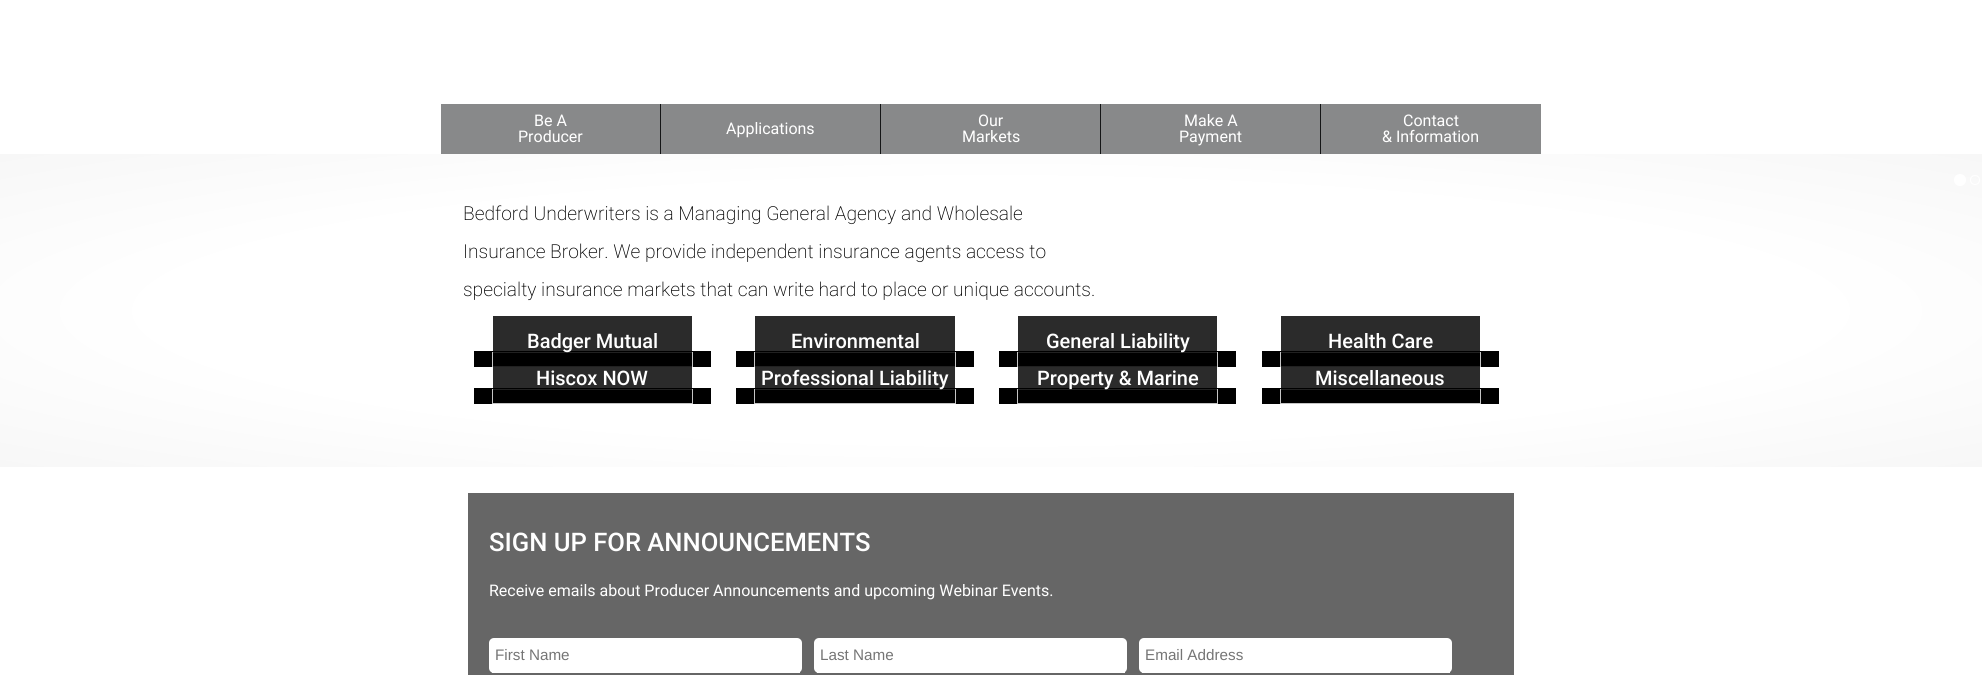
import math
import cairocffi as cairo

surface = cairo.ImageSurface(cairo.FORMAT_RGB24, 1982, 675)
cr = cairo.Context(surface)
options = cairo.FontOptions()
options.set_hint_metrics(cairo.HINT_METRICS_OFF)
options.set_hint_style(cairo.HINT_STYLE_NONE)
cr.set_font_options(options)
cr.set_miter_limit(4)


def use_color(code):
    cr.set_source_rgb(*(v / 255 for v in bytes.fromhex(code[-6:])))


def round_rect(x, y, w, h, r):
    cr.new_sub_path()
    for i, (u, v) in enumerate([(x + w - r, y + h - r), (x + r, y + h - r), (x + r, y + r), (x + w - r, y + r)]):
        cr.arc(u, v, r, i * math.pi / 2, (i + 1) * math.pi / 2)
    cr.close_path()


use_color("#ffffff")
cr.paint()
use_color("#88898a")
cr.rectangle(441, 104, 219, 50)
cr.fill()
cr.select_font_face("Roboto")
cr.set_font_size(16)
use_color("#ffffff")
cr.move_to(534, 126)
cr.show_text("Be A")
cr.move_to(518, 142)
cr.show_text("Producer")
use_color("#141516")
cr.rectangle(660, 104, 1, 50)
cr.fill()
use_color("#88898a")
cr.rectangle(661, 104, 219, 50)
cr.fill()
use_color("#ffffff")
cr.move_to(726, 134)
cr.show_text("Applications")
use_color("#141516")
cr.rectangle(880, 104, 1, 50)
cr.fill()
use_color("#88898a")
cr.rectangle(881, 104, 219, 50)
cr.fill()
use_color("#ffffff")
cr.move_to(978, 126)
cr.show_text("Our")
cr.move_to(962, 142)
cr.show_text("Markets")
use_color("#141516")
cr.rectangle(1100, 104, 1, 50)
cr.fill()
use_color("#88898a")
cr.rectangle(1101, 104, 219, 50)
cr.fill()
use_color("#ffffff")
cr.move_to(1184, 126)
cr.show_text("Make A")
cr.move_to(1179, 142)
cr.show_text("Payment")
use_color("#141516")
cr.rectangle(1320, 104, 1, 50)
cr.fill()
use_color("#88898a")
cr.rectangle(1321, 104, 220, 50)
cr.fill()
use_color("#ffffff")
cr.move_to(1403, 126)
cr.show_text("Contact")
cr.move_to(1382, 142)
cr.show_text("& Information")
gradient = cairo.RadialGradient(0, 0, 0, 0, 0, 1)
gradient.set_matrix(cairo.Matrix(1 / 1401, 0, 0, 1 / 221, -1 * 991 / 1401, -1 * 311 / 221))
gradient.add_color_stop_rgba(0, 1, 1, 1, 1)
gradient.add_color_stop_rgba(0.59, 1, 1, 1, 1)
gradient.add_color_stop_rgba(1, 0.969, 0.969, 0.969, 1)
cr.set_source(gradient)
cr.rectangle(0, 154, 1982, 313)
cr.fill()
use_color("#ffffff")
cr.arc(1960, 180, 6, 0, 2 * math.pi)
cr.fill()
cr.arc(1975, 180, 4.5, 0, 2 * math.pi)
cr.set_line_width(1)
cr.stroke()
cr.select_font_face("Roboto ExtraLight")
cr.set_font_size(19.2)
use_color("#000000")
cr.move_to(463, 220)
cr.show_text("Bedford Underwriters is a Managing General Agency and Wholesale")
cr.move_to(463, 258)
cr.show_text("Insurance Broker. We provide independent insurance agents access to")
cr.move_to(463, 296)
cr.show_text("specialty insurance markets that can write hard to place or unique accounts.")
cr.rectangle(474, 351, 237, 16)
cr.fill()
cr.rectangle(492.5, 352.5, 200, 14)
use_color("#c5c5c5")
cr.stroke()
cr.set_source_rgba(0, 0, 0, 0.83)
cr.rectangle(493, 316, 199, 37)
cr.fill()
cr.select_font_face("Roboto Medium")
cr.set_font_size(20)
use_color("#ffffff")
cr.move_to(527, 348)
cr.show_text("Badger Mutual")
use_color("#000000")
cr.rectangle(736, 351, 238, 16)
cr.fill()
cr.rectangle(754.5, 352.5, 201, 14)
use_color("#c5c5c5")
cr.stroke()
cr.set_source_rgba(0, 0, 0, 0.83)
cr.rectangle(755, 316, 200, 37)
cr.fill()
use_color("#ffffff")
cr.move_to(791, 348)
cr.show_text("Environmental")
use_color("#000000")
cr.rectangle(999, 351, 237, 16)
cr.fill()
cr.rectangle(1017.5, 352.5, 200, 14)
use_color("#c5c5c5")
cr.stroke()
cr.set_source_rgba(0, 0, 0, 0.83)
cr.rectangle(1018, 316, 199, 37)
cr.fill()
use_color("#ffffff")
cr.move_to(1046, 348)
cr.show_text("General Liability")
use_color("#000000")
cr.rectangle(1262, 351, 237, 16)
cr.fill()
cr.rectangle(1280.5, 352.5, 200, 14)
use_color("#c5c5c5")
cr.stroke()
cr.set_source_rgba(0, 0, 0, 0.83)
cr.rectangle(1281, 316, 199, 37)
cr.fill()
use_color("#ffffff")
cr.move_to(1328, 348)
cr.show_text("Health Care")
use_color("#000000")
cr.rectangle(474, 388, 237, 16)
cr.fill()
cr.rectangle(492.5, 389.5, 200, 14)
use_color("#c5c5c5")
cr.stroke()
cr.set_source_rgba(0, 0, 0, 0.83)
cr.rectangle(493, 366, 199, 24)
cr.fill()
use_color("#ffffff")
cr.move_to(536, 385)
cr.show_text("Hiscox NOW")
use_color("#000000")
cr.rectangle(736, 388, 238, 16)
cr.fill()
cr.rectangle(754.5, 389.5, 201, 14)
use_color("#c5c5c5")
cr.stroke()
cr.set_source_rgba(0, 0, 0, 0.83)
cr.rectangle(755, 366, 200, 24)
cr.fill()
use_color("#ffffff")
cr.move_to(761, 385)
cr.show_text("Professional Liability")
use_color("#000000")
cr.rectangle(999, 388, 237, 16)
cr.fill()
cr.rectangle(1017.5, 389.5, 200, 14)
use_color("#c5c5c5")
cr.stroke()
cr.set_source_rgba(0, 0, 0, 0.83)
cr.rectangle(1018, 366, 199, 24)
cr.fill()
use_color("#ffffff")
cr.move_to(1037, 385)
cr.show_text("Property & Marine")
use_color("#000000")
cr.rectangle(1262, 388, 237, 16)
cr.fill()
cr.rectangle(1280.5, 389.5, 200, 14)
use_color("#c5c5c5")
cr.stroke()
cr.set_source_rgba(0, 0, 0, 0.83)
cr.rectangle(1281, 366, 199, 24)
cr.fill()
use_color("#ffffff")
cr.move_to(1315, 385)
cr.show_text("Miscellaneous")
use_color("#666666")
cr.rectangle(468, 493, 1046, 182)
cr.fill()
cr.set_font_size(25.6)
use_color("#ffffff")
cr.move_to(489, 551)
cr.show_text("SIGN UP FOR ANNOUNCEMENTS")
cr.select_font_face("Roboto")
cr.set_font_size(16)
cr.move_to(489, 596)
cr.show_text("Receive emails about Producer Announcements and upcoming Webinar Events.")
round_rect(489, 638, 313, 35, 5)
cr.fill()
cr.rectangle(492, 672, 308, 1)
cr.fill()
cr.select_font_face("Liberation Sans")
cr.set_font_size(15.25)
use_color("#757575")
cr.move_to(495, 660)
cr.show_text("First Name")
use_color("#ffffff")
round_rect(814, 638, 313, 35, 5)
cr.fill()
cr.rectangle(817, 672, 308, 1)
cr.fill()
use_color("#757575")
cr.move_to(820, 660)
cr.show_text("Last Name")
use_color("#ffffff")
round_rect(1139, 638, 313, 35, 5)
cr.fill()
cr.rectangle(1142, 672, 308, 1)
cr.fill()
use_color("#757575")
cr.move_to(1145, 660)
cr.show_text("Email Address")
surface.write_to_png("result.png")
